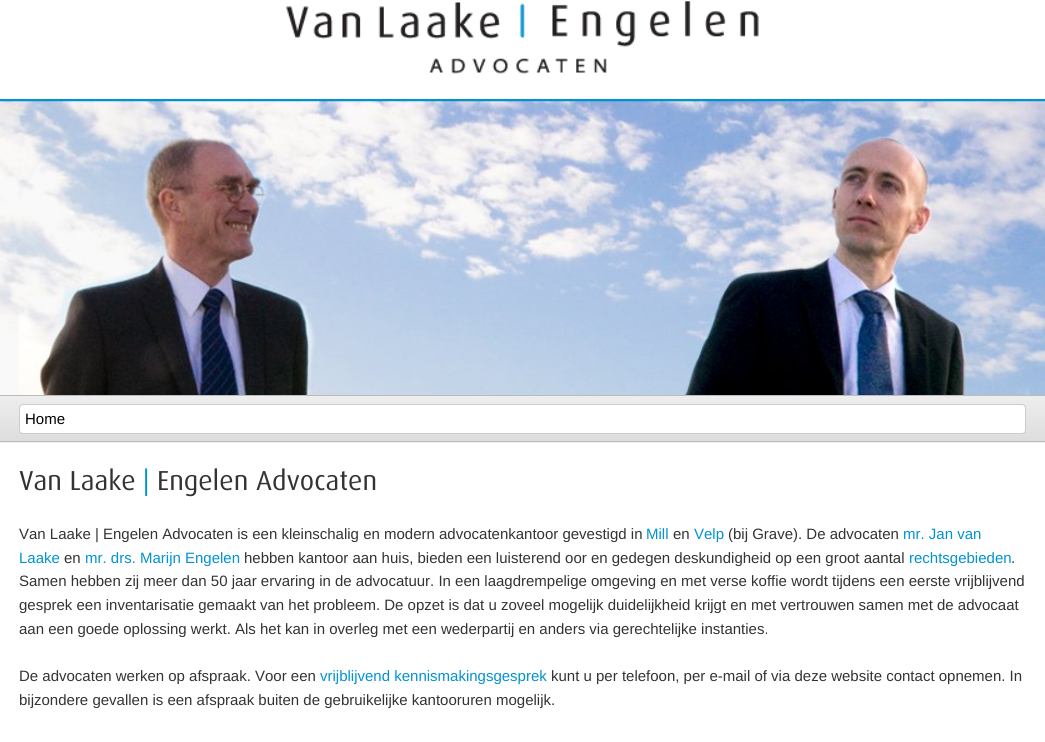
import math
import cairocffi as cairo

surface = cairo.ImageSurface(cairo.FORMAT_RGB24, 1045, 742)
cr = cairo.Context(surface)
options = cairo.FontOptions()
options.set_hint_metrics(cairo.HINT_METRICS_OFF)
options.set_hint_style(cairo.HINT_STYLE_NONE)
cr.set_font_options(options)
cr.set_miter_limit(4)


def use_color(code):
    cr.set_source_rgb(*(v / 255 for v in bytes.fromhex(code[-6:])))


def round_rect(x, y, w, h, r):
    cr.new_sub_path()
    for i, (u, v) in enumerate([(x + w - r, y + h - r), (x + r, y + h - r), (x + r, y + r), (x + w - r, y + r)]):
        cr.arc(u, v, r, i * math.pi / 2, (i + 1) * math.pi / 2)
    cr.close_path()


def picture(path, x, y, w, h):
    cr.save()
    cr.set_source_surface(cairo.ImageSurface.create_from_png(path), x, y)
    cr.rectangle(x, y, w, h)
    cr.fill()
    cr.restore()


use_color("#ffffff")
cr.paint()
picture("img1.png", 286, 1, 473, 73)
use_color("#0093cf")
cr.rectangle(0, 99, 1045, 3)
cr.fill()
use_color("#bbbbbb")
cr.rectangle(0, 395, 1045, 1)
cr.fill()
picture("img2.png", 0, 101, 1045, 294)
use_color("#eeeeee")
cr.rectangle(0, 442, 1045, 1)
cr.fill()
gradient = cairo.LinearGradient(523, 396, 523, 441)
gradient.add_color_stop_rgba(0, 0.933, 0.933, 0.933, 1)
gradient.add_color_stop_rgba(1, 0.867, 0.867, 0.867, 1)
cr.set_source(gradient)
cr.rectangle(0, 396, 1045, 45)
cr.fill()
use_color("#bbbbbb")
cr.rectangle(0, 441, 1045, 1)
cr.fill()
use_color("#ffffff")
round_rect(19.5, 404.5, 1006, 29, 3.5)
cr.fill_preserve()
use_color("#cccccc")
cr.set_line_width(1)
cr.stroke()
cr.select_font_face("Liberation Sans")
cr.set_font_size(15)
use_color("#000000")
cr.move_to(25, 424)
cr.show_text("Home")
cr.select_font_face("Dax")
cr.set_font_size(27.5)
use_color("#333333")
cr.move_to(19, 490)
cr.show_text("Van Laake")
use_color("#0093cf")
cr.move_to(143, 490)
cr.show_text("|")
use_color("#333333")
cr.move_to(157, 490)
cr.show_text("Engelen Advocaten")
cr.select_font_face("Liberation Sans")
cr.set_font_size(15)
cr.move_to(19, 539)
cr.show_text("Van Laake | Engelen Advocaten is een kleinschalig en modern advocatenkantoor gevestigd in")
use_color("#0093cf")
cr.move_to(646, 539)
cr.show_text("Mill")
use_color("#333333")
cr.move_to(673, 539)
cr.show_text("en")
use_color("#0093cf")
cr.move_to(694, 539)
cr.show_text("Velp")
use_color("#333333")
cr.move_to(728, 539)
cr.show_text("(bij Grave). De advocaten")
use_color("#0093cf")
cr.move_to(903, 539)
cr.show_text("mr. Jan van")
cr.move_to(19, 563)
cr.show_text("Laake")
use_color("#333333")
cr.move_to(64, 563)
cr.show_text("en")
use_color("#0093cf")
cr.move_to(85, 563)
cr.show_text("mr. drs. Marijn Engelen")
use_color("#333333")
cr.move_to(244, 563)
cr.show_text("hebben kantoor aan huis, bieden een luisterend oor en gedegen deskundigheid op een groot aantal")
use_color("#0093cf")
cr.move_to(909, 563)
cr.show_text("rechtsgebieden")
use_color("#333333")
cr.move_to(1011, 563)
cr.show_text(".")
cr.move_to(19, 586)
cr.show_text("Samen hebben zij meer dan 50 jaar ervaring in de advocatuur. In een laagdrempelige omgeving en met verse koffie wordt tijdens een eerste vrijblijvend")
cr.move_to(19, 610)
cr.show_text("gesprek een inventarisatie gemaakt van het probleem. De opzet is dat u zoveel mogelijk duidelijkheid krijgt en met vertrouwen samen met de advocaat")
cr.move_to(19, 634)
cr.show_text("aan een goede oplossing werkt. Als het kan in overleg met een wederpartij en anders via gerechtelijke instanties.")
cr.move_to(19, 681)
cr.show_text("De advocaten werken op afspraak. Voor een")
use_color("#0093cf")
cr.move_to(320, 681)
cr.show_text("vrijblijvend kennismakingsgesprek")
use_color("#333333")
cr.move_to(551, 681)
cr.show_text("kunt u per telefoon, per e-mail of via deze website contact opnemen. In")
cr.move_to(19, 705)
cr.show_text("bijzondere gevallen is een afspraak buiten de gebruikelijke kantooruren mogelijk.")
surface.write_to_png("result.png")
